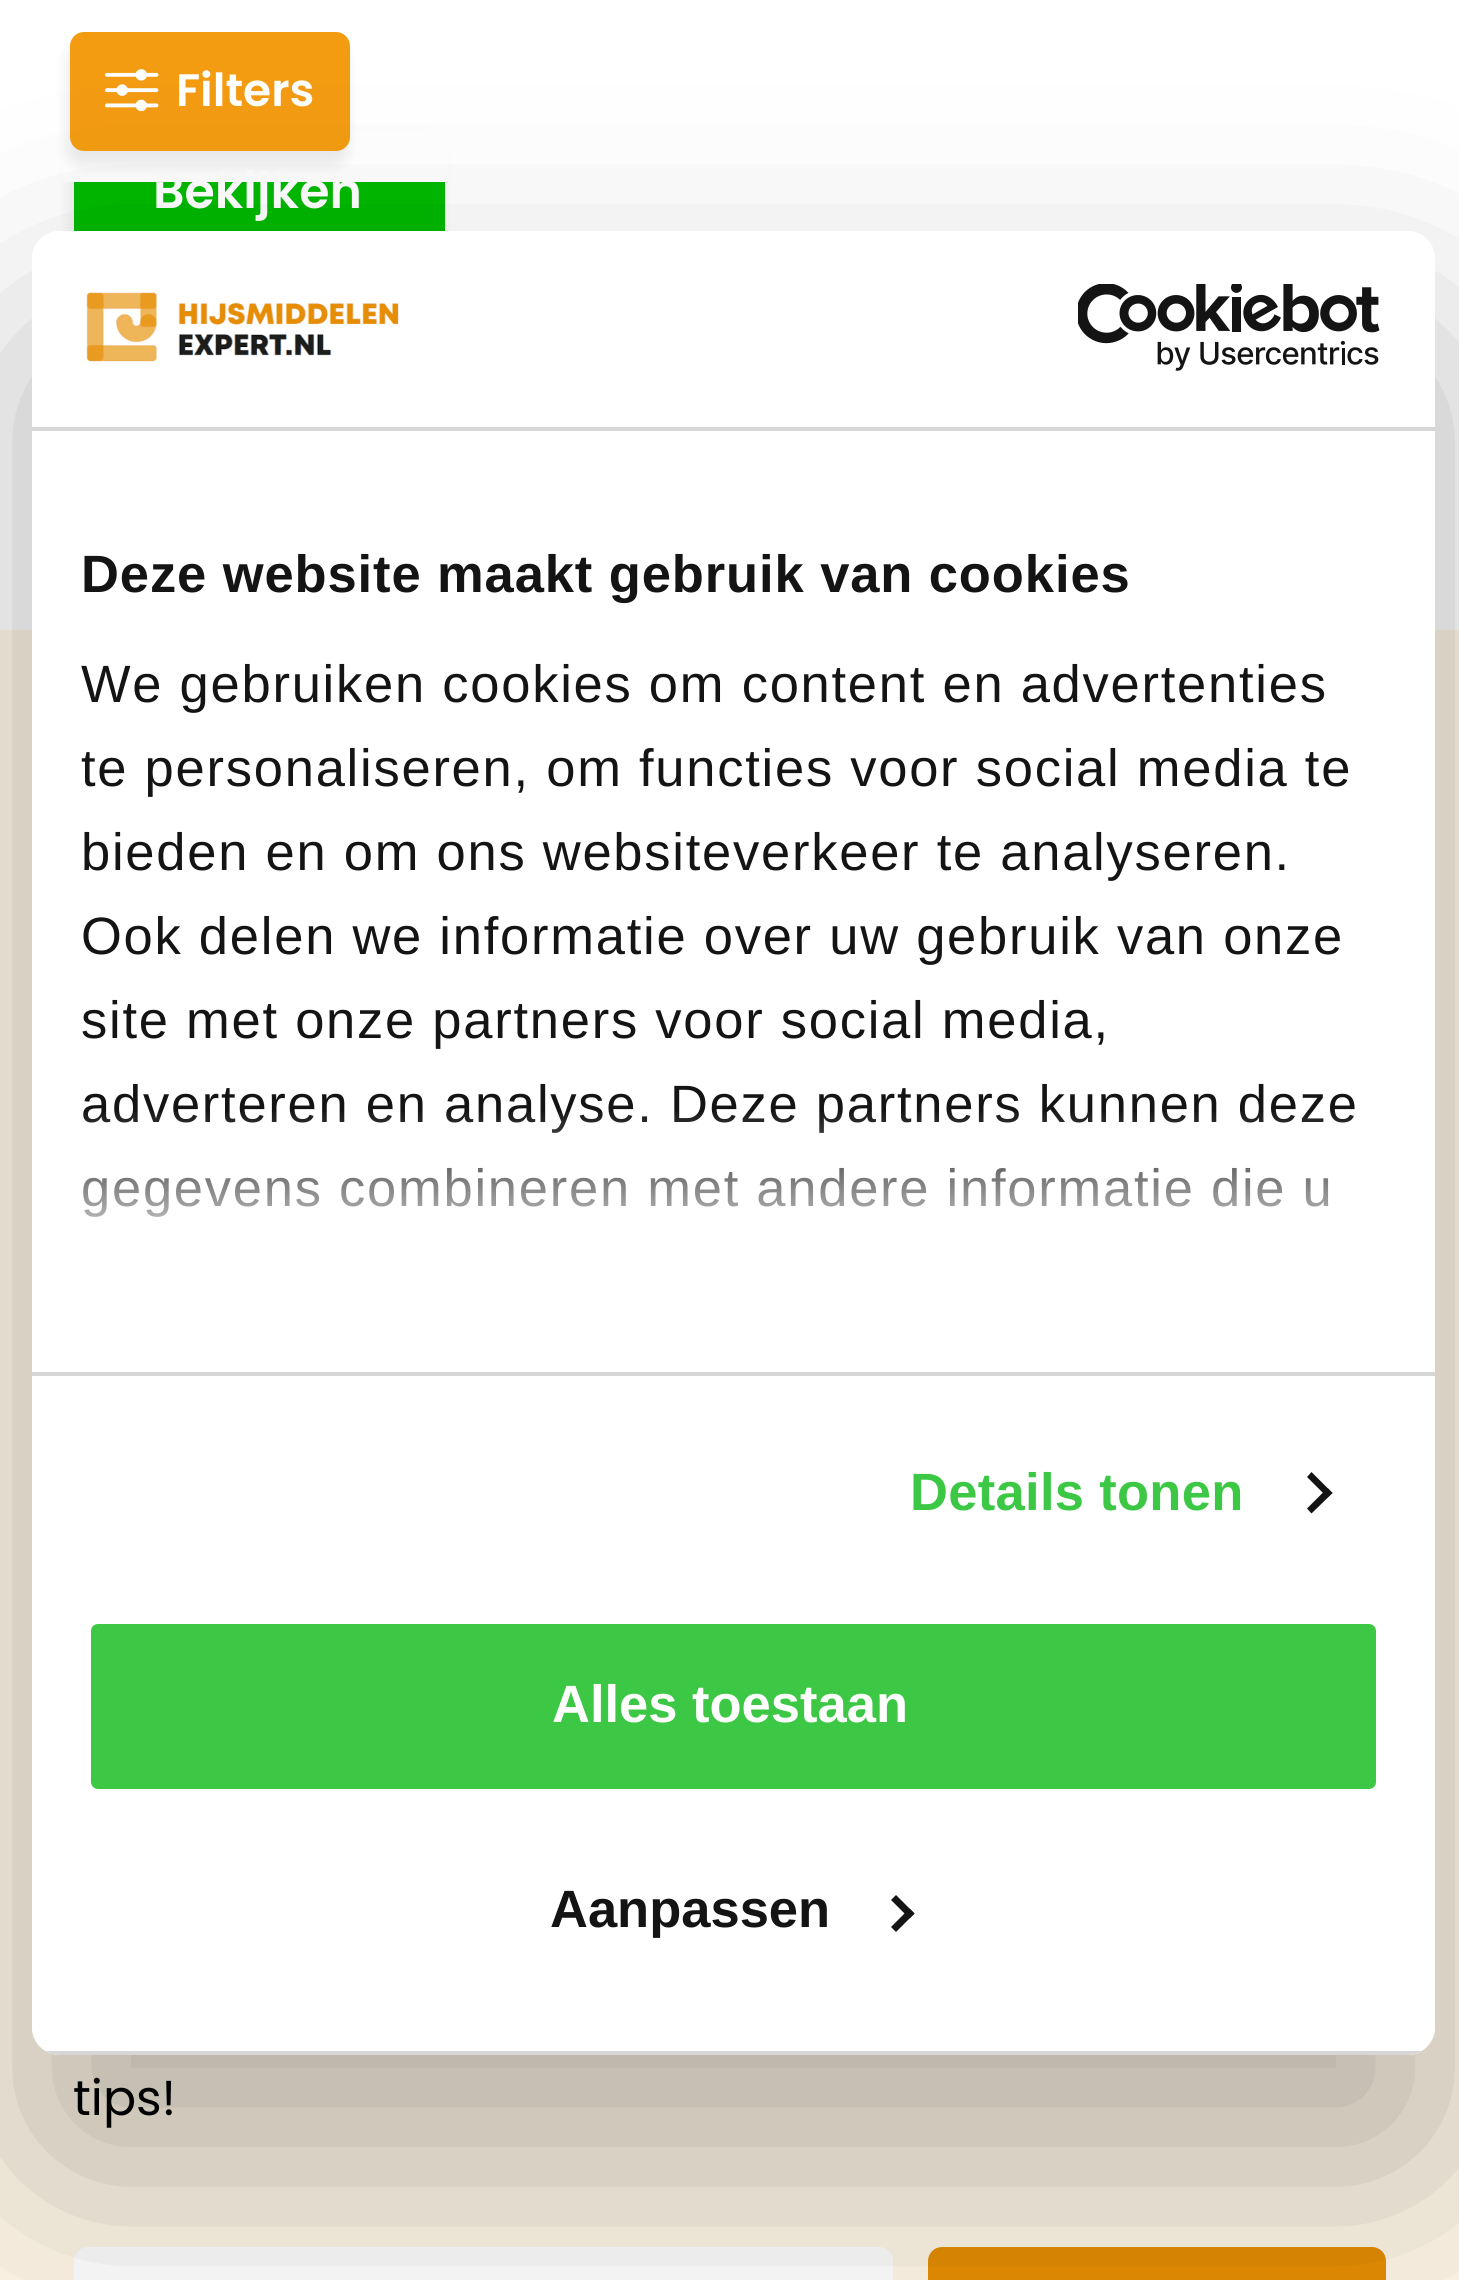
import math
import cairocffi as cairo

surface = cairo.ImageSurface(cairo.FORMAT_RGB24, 1459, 2280)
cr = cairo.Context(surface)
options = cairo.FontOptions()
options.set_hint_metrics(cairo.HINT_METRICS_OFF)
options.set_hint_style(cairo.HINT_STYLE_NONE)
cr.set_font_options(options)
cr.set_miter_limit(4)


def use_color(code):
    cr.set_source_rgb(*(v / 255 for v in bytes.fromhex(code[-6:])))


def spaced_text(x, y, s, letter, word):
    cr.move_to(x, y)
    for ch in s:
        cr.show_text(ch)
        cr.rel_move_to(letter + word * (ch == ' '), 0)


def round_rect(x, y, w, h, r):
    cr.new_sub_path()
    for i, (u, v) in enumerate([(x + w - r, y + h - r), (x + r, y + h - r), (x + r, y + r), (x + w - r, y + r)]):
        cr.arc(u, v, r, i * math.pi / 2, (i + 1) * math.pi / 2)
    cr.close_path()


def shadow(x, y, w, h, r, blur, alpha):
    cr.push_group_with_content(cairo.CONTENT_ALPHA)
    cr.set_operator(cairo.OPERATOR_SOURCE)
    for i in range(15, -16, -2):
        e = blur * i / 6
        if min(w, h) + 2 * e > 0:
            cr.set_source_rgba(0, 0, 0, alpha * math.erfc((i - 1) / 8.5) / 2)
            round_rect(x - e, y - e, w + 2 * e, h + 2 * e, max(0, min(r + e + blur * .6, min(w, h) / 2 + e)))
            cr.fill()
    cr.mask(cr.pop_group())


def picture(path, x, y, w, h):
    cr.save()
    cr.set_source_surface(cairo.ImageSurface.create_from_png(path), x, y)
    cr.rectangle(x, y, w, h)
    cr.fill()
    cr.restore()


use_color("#ffffff")
cr.paint()
use_color("#000000")
shadow(70, 137, 371, 140, 14, 7, 0.08)
use_color("#ffffff")
cr.rectangle(62, 129, 387, 53)
cr.fill()
use_color("#00b900")
cr.rectangle(74, 182, 371, 49)
cr.fill()
use_color("#000000")
shadow(67, 46, 280, 119, 14, 7, 0.08)
use_color("#f39c12")
round_rect(70, 32, 280, 119, 14)
cr.fill()
picture("img1.png", 105, 69, 54, 43)
cr.select_font_face("Poppins SemiBold")
cr.set_font_size(45.5)
use_color("#ffffff")
cr.move_to(176, 106)
cr.show_text("Filters")
cr.set_font_size(49)
cr.move_to(153, 208)
cr.show_text("Bekijken")
use_color("#fff6e6")
cr.rectangle(0, 630, 1459, 1650)
cr.fill()
use_color("#ffffff")
round_rect(74, 2247, 819, 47, 14)
cr.fill()
use_color("#e68e03")
round_rect(928, 2247, 458, 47, 14)
cr.fill()
cr.save()
cr.set_fill_rule(cairo.FILL_RULE_EVEN_ODD)
cr.new_path()
cr.move_to(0, 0)
cr.line_to(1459, 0)
cr.line_to(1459, 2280)
cr.line_to(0, 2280)
cr.close_path()
cr.move_to(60, 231)
cr.line_to(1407, 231)
cr.curve_to(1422.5, 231, 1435, 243.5, 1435, 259)
cr.line_to(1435, 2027)
cr.curve_to(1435, 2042.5, 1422.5, 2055, 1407, 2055)
cr.line_to(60, 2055)
cr.curve_to(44.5, 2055, 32, 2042.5, 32, 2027)
cr.line_to(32, 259)
cr.curve_to(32, 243.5, 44.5, 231, 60, 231)
cr.close_path()
cr.clip()
use_color("#000000")
shadow(32, 343, 1403, 1824, 28, 119, 0.3)
cr.restore()
use_color("#ffffff")
round_rect(32, 231, 1403, 1824, 28)
cr.fill()
use_color("#d6d6d6")
cr.rectangle(32, 427, 1403, 4)
cr.fill()
picture("img2.png", 86, 292, 313, 70)
picture("img3.png", 1078, 284, 302, 87)
cr.rectangle(32, 1372, 1403, 4)
cr.fill()
cr.select_font_face("Liberation Sans", cairo.FONT_SLANT_NORMAL, cairo.FONT_WEIGHT_BOLD)
cr.set_font_size(52.5)
use_color("#141414")
spaced_text(81, 592, "Deze website maakt gebruik van cookies", 0.9, 0)
cr.select_font_face("Liberation Sans")
spaced_text(81, 702, "We gebruiken cookies om content en advertenties", 1.75, 0)
spaced_text(81, 786, "te personaliseren, om functies voor social media te", 1.75, 0)
spaced_text(81, 870, "bieden en om ons websiteverkeer te analyseren.", 1.75, 0)
spaced_text(81, 954, "Ook delen we informatie over uw gebruik van onze", 1.75, 0)
spaced_text(81, 1038, "site met onze partners voor social media,", 1.75, 0)
spaced_text(81, 1122, "adverteren en analyse. Deze partners kunnen deze", 1.75, 0)
spaced_text(81, 1206, "gegevens combineren met andere informatie die u", 1.75, 0)
gradient = cairo.LinearGradient(709, 1370, 709, 1108)
gradient.add_color_stop_rgba(0, 1, 1, 1, 1)
gradient.add_color_stop_rgba(0.5, 1, 1, 1, 0.8)
gradient.add_color_stop_rgba(1, 1, 1, 1, 0)
cr.set_source(gradient)
cr.rectangle(82, 1112, 1271, 105)
cr.fill()
cr.select_font_face("Liberation Sans", cairo.FONT_SLANT_NORMAL, cairo.FONT_WEIGHT_BOLD)
use_color("#3cc845")
spaced_text(910, 1510, "Details tonen", 0.3, 0)
use_color("#141414")
cr.new_path()
cr.move_to(1311.5, 1472)
cr.line_to(1332.5, 1493)
cr.line_to(1327.5, 1497.5)
cr.line_to(1307, 1477)
cr.close_path()
cr.fill()
cr.new_path()
cr.move_to(1327.5, 1488)
cr.line_to(1332.5, 1493)
cr.line_to(1311.5, 1513.5)
cr.line_to(1307, 1508.5)
cr.close_path()
cr.fill()
cr.save()
round_rect(32, 231, 1403, 1824, 28)
cr.clip()
use_color("#d6d6d6")
cr.rectangle(45, 2051, 1377, 4)
cr.fill()
cr.restore()
use_color("#3cc845")
round_rect(87.5, 1620.5, 1292, 172, 10.5)
cr.fill_preserve()
use_color("#ffffff")
cr.set_line_width(7)
cr.stroke()
cr.move_to(552, 1722)
cr.show_text("Alles toestaan")
use_color("#141414")
cr.move_to(550, 1927)
cr.show_text("Aanpassen")
cr.new_path()
cr.move_to(896, 1895)
cr.line_to(914.5, 1913.5)
cr.line_to(909.5, 1918.5)
cr.line_to(891, 1900)
cr.close_path()
cr.fill()
cr.new_path()
cr.move_to(909.5, 1908.5)
cr.line_to(914.5, 1913.5)
cr.line_to(896, 1932)
cr.line_to(891, 1927)
cr.close_path()
cr.fill()
cr.select_font_face("Poppins")
cr.set_font_size(49)
use_color("#000000")
cr.move_to(73, 2115)
cr.show_text("tips!")
surface.write_to_png("result.png")
